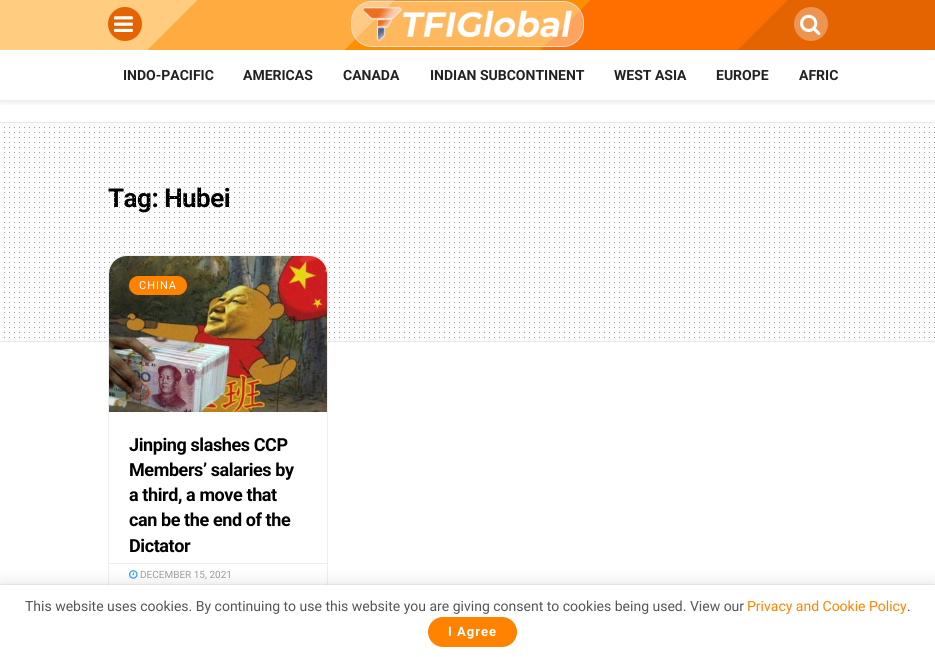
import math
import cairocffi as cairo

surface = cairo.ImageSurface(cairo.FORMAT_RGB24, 935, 657)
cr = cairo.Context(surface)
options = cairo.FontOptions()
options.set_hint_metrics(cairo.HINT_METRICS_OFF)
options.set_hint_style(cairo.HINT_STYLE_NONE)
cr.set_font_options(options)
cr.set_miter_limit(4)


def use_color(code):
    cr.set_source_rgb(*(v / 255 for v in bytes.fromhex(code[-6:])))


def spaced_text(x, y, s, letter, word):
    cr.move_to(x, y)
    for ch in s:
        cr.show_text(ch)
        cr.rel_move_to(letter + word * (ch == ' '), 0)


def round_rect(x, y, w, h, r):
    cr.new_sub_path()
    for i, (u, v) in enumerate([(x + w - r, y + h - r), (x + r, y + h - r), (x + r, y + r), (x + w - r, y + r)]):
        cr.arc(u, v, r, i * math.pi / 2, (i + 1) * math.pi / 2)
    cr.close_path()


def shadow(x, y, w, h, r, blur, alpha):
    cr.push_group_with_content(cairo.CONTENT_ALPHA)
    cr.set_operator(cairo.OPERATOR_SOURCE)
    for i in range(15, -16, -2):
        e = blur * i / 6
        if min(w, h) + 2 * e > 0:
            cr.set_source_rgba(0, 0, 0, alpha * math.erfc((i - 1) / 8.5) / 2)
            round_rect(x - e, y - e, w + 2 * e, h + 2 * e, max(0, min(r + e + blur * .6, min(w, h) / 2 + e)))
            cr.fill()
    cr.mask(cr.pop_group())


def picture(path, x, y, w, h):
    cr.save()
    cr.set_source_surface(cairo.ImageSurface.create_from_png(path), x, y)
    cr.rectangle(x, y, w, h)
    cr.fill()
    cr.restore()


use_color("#ffffff")
cr.paint()
use_color("#fcfcfc")
cr.rectangle(0, 123, 935, 218)
cr.fill()
cr.save()
cr.rectangle(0, 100, 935, 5)
cr.clip()
use_color("#000000")
shadow(0, 2, 935, 100, 0, 3, 0.1)
cr.restore()
gradient = cairo.LinearGradient(221, -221, 714, 271)
gradient.add_color_stop_rgba(0, 1, 0.8, 0.502, 1)
gradient.add_color_stop_rgba(0.2, 1, 0.8, 0.502, 1)
gradient.add_color_stop_rgba(0.2, 1, 0.671, 0.251, 1)
gradient.add_color_stop_rgba(0.4, 1, 0.671, 0.251, 1)
gradient.add_color_stop_rgba(0.4, 1, 0.561, 0, 1)
gradient.add_color_stop_rgba(0.6, 1, 0.561, 0, 1)
gradient.add_color_stop_rgba(0.6, 1, 0.435, 0, 1)
gradient.add_color_stop_rgba(0.8, 1, 0.435, 0, 1)
gradient.add_color_stop_rgba(0.8, 0.89, 0.392, 0.004, 1)
gradient.add_color_stop_rgba(1, 0.89, 0.392, 0.004, 1)
cr.set_source(gradient)
cr.rectangle(0, 0, 935, 50)
cr.fill()
use_color("#e36401")
cr.arc(125, 24, 17, 0, 2 * math.pi)
cr.fill()
picture("img1.png", 114, 16, 19, 16)
round_rect(351.5, 1.5, 232, 45, 20.5)
use_color("#e0e0e0")
cr.set_line_width(1)
cr.stroke()
cr.set_source_rgba(1, 1, 1, 0.37)
round_rect(352, 2, 231, 44, 20)
cr.fill()
picture("img2.png", 362, 7, 40, 35)
picture("img3.png", 402, 10, 171, 28)
use_color("#ec9450")
cr.arc(811, 24, 17, 0, 2 * math.pi)
cr.fill()
picture("img4.png", 800, 14, 21, 22)
cr.select_font_face("Roboto", cairo.FONT_SLANT_NORMAL, cairo.FONT_WEIGHT_BOLD)
cr.set_font_size(14)
use_color("#212121")
cr.move_to(123, 80)
cr.show_text("INDO-PACIFIC")
cr.move_to(243, 80)
cr.show_text("AMERICAS")
cr.move_to(343, 80)
cr.show_text("CANADA")
cr.move_to(430, 80)
cr.show_text("INDIAN SUBCONTINENT")
cr.move_to(614, 80)
cr.show_text("WEST ASIA")
cr.move_to(716, 80)
cr.show_text("EUROPE")
cr.move_to(799, 80)
cr.show_text("AFRIC")
cr.set_font_size(26)
use_color("#000000")
spaced_text(108, 207, "Tag: Hubei", -0.5, 0)
picture("img5.png", 4, 127, 931, 211)
use_color("#e8e8e8")
cr.rectangle(0, 122, 935, 1)
cr.fill()
cr.rectangle(0, 341, 935, 1)
cr.fill()
use_color("#ffffff")
round_rect(108.5, 255.5, 219, 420, 17.5)
cr.fill_preserve()
use_color("#eeeeee")
cr.stroke()
picture("img6.png", 109, 256, 218, 156)
use_color("#ff8300")
round_rect(129, 276, 58, 19, 9.5)
cr.fill()
cr.select_font_face("Roboto")
cr.set_font_size(11)
use_color("#ffffff")
spaced_text(139, 289, "CHINA", 1, 0)
cr.select_font_face("Roboto", cairo.FONT_SLANT_NORMAL, cairo.FONT_WEIGHT_BOLD)
cr.set_font_size(18)
use_color("#000000")
spaced_text(129, 451, "Jinping slashes CCP", -0.4, 0)
spaced_text(129, 476, "Members’ salaries by", -0.4, 0)
spaced_text(129, 501, "a third, a move that", -0.4, 0)
spaced_text(129, 526, "can be the end of the", -0.4, 0)
spaced_text(129, 552, "Dictator", -0.4, 0)
use_color("#eeeeee")
cr.rectangle(109, 563, 218, 1)
cr.fill()
picture("img7.png", 129, 570, 9, 9)
cr.select_font_face("Roboto")
cr.set_font_size(10)
use_color("#a0a0a0")
cr.move_to(140, 578)
cr.show_text("DECEMBER 15, 2021")
use_color("#000000")
shadow(0, 587, 935, 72, 0, 10, 0.15)
shadow(0, 585, 935, 72, 0, 0.5, 0.2)
use_color("#ffffff")
cr.rectangle(0, 585, 935, 72)
cr.fill()
cr.set_font_size(14)
use_color("#555555")
cr.move_to(25, 611)
cr.show_text("This website uses cookies. By continuing to use this website you are giving consent to cookies being used. View our")
use_color("#ff8300")
cr.move_to(747, 611)
cr.show_text("Privacy and Cookie Policy")
use_color("#555555")
cr.move_to(907, 611)
cr.show_text(".")
use_color("#ff8300")
round_rect(428, 617, 89, 30, 15)
cr.fill()
cr.select_font_face("Roboto", cairo.FONT_SLANT_NORMAL, cairo.FONT_WEIGHT_BOLD)
cr.set_font_size(13)
use_color("#ffffff")
spaced_text(448, 636, "I Agree", 1, 0)
surface.write_to_png("result.png")
